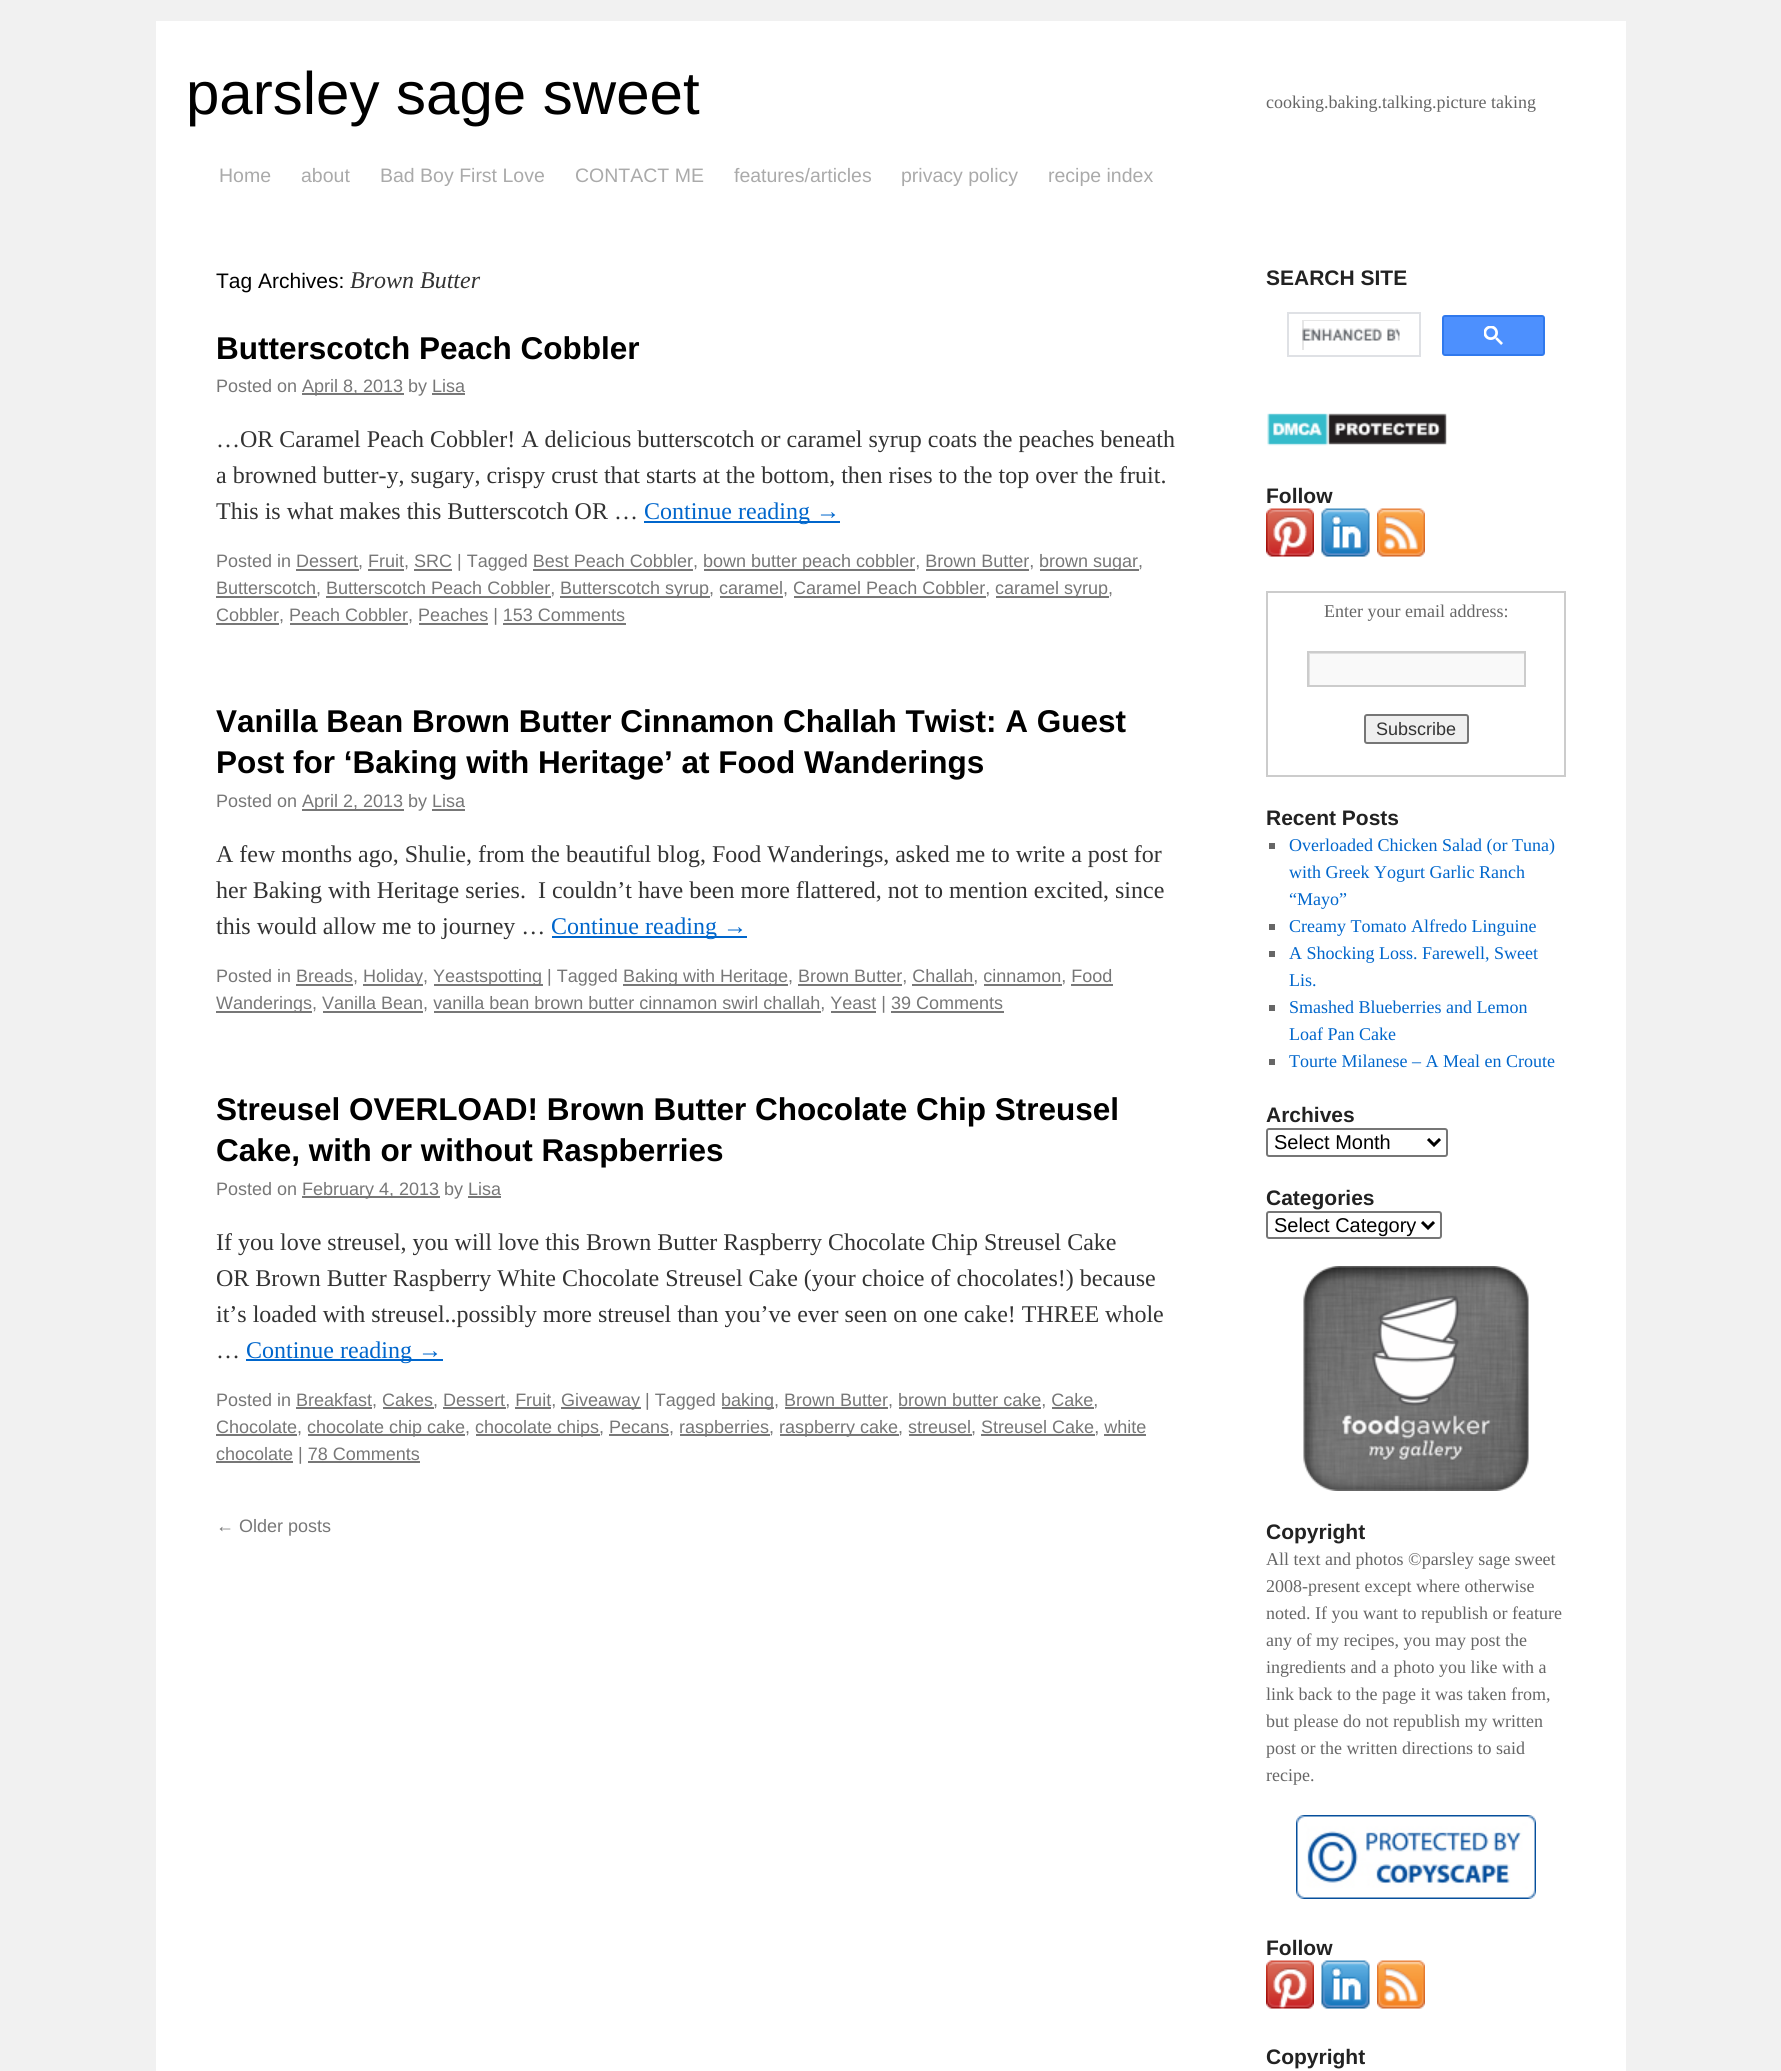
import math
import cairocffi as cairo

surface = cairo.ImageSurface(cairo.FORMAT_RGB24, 1781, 2071)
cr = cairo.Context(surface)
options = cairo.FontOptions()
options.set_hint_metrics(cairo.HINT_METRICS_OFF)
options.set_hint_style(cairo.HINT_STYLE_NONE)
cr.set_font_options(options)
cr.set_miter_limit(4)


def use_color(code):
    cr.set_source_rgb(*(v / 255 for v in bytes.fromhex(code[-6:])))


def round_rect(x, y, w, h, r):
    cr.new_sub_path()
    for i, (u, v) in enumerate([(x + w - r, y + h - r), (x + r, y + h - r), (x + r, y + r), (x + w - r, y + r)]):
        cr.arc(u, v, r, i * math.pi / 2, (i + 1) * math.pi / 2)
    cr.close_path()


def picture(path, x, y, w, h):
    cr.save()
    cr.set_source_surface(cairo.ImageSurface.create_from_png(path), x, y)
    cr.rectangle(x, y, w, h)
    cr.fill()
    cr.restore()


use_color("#f1f1f1")
cr.paint()
use_color("#ffffff")
cr.rectangle(156, 21, 1470, 2050)
cr.fill()
cr.select_font_face("Liberation Sans")
cr.set_font_size(60)
use_color("#000000")
cr.move_to(186, 114)
cr.show_text("parsley sage sweet")
cr.select_font_face("Liberation Serif")
cr.set_font_size(18)
use_color("#666666")
cr.move_to(1266, 108)
cr.show_text("cooking.baking.talking.picture taking")
cr.select_font_face("Liberation Sans")
cr.set_font_size(19.5)
use_color("#aaaaaa")
cr.move_to(219, 182)
cr.show_text("Home")
cr.move_to(301, 182)
cr.show_text("about")
cr.move_to(380, 182)
cr.show_text("Bad Boy First Love")
cr.move_to(575, 182)
cr.show_text("CONTACT ME")
cr.move_to(734, 182)
cr.show_text("features/articles")
cr.move_to(901, 182)
cr.show_text("privacy policy")
cr.move_to(1048, 182)
cr.show_text("recipe index")
cr.set_font_size(21)
use_color("#000000")
cr.move_to(216, 288)
cr.show_text("Tag Archives:")
cr.select_font_face("Liberation Serif", cairo.FONT_SLANT_ITALIC)
cr.set_font_size(24)
use_color("#333333")
cr.move_to(350, 288)
cr.show_text("Brown Butter")
cr.select_font_face("Liberation Sans", cairo.FONT_SLANT_NORMAL, cairo.FONT_WEIGHT_BOLD)
cr.set_font_size(31.5)
use_color("#000000")
cr.move_to(216, 359)
cr.show_text("Butterscotch Peach Cobbler")
cr.select_font_face("Liberation Sans")
cr.set_font_size(18)
use_color("#777777")
cr.move_to(216, 392)
cr.show_text("Posted on")
cr.rectangle(302, 393, 102, 2)
cr.fill()
cr.move_to(302, 392)
cr.show_text("April 8, 2013 by Lisa")
cr.rectangle(432, 393, 33, 2)
cr.fill()
cr.select_font_face("Liberation Serif")
cr.set_font_size(24)
use_color("#333333")
cr.move_to(216, 447)
cr.show_text("…OR Caramel Peach Cobbler! A delicious butterscotch or caramel syrup coats the peaches beneath")
cr.move_to(216, 483)
cr.show_text("a browned butter-y, sugary, crispy crust that starts at the bottom, then rises to the top over the fruit.")
cr.move_to(216, 519)
cr.show_text("This is what makes this Butterscotch OR …")
use_color("#0066cc")
cr.rectangle(644, 521, 196, 2)
cr.fill()
cr.move_to(644, 519)
cr.show_text("Continue reading →")
cr.select_font_face("Liberation Sans")
cr.set_font_size(18)
use_color("#777777")
cr.move_to(216, 567)
cr.show_text("Posted in Dessert, Fruit, SRC | Tagged Best Peach Cobbler,")
cr.rectangle(296, 569, 63, 2)
cr.fill()
cr.rectangle(368, 569, 36, 2)
cr.fill()
cr.rectangle(414, 569, 38, 2)
cr.fill()
cr.rectangle(704, 569, 211, 2)
cr.fill()
cr.move_to(703, 567)
cr.show_text("bown butter peach cobbler, Brown Butter,")
cr.rectangle(533, 569, 160, 2)
cr.fill()
cr.rectangle(926, 569, 103, 2)
cr.fill()
cr.rectangle(1040, 569, 99, 2)
cr.fill()
cr.move_to(1039, 567)
cr.show_text("brown sugar,")
cr.rectangle(216, 596, 101, 2)
cr.fill()
cr.move_to(216, 594)
cr.show_text("Butterscotch, Butterscotch Peach Cobbler,")
cr.rectangle(326, 596, 225, 2)
cr.fill()
cr.rectangle(560, 596, 150, 2)
cr.fill()
cr.move_to(560, 594)
cr.show_text("Butterscotch syrup, caramel, Caramel Peach Cobbler,")
cr.rectangle(720, 596, 63, 2)
cr.fill()
cr.rectangle(794, 596, 192, 2)
cr.fill()
cr.rectangle(996, 596, 113, 2)
cr.fill()
cr.move_to(995, 594)
cr.show_text("caramel syrup,")
cr.rectangle(216, 623, 63, 2)
cr.fill()
cr.move_to(216, 621)
cr.show_text("Cobbler, Peach Cobbler, Peaches | 153 Comments")
cr.rectangle(290, 623, 118, 2)
cr.fill()
cr.rectangle(419, 623, 69, 2)
cr.fill()
cr.rectangle(503, 623, 123, 2)
cr.fill()
cr.select_font_face("Liberation Sans", cairo.FONT_SLANT_NORMAL, cairo.FONT_WEIGHT_BOLD)
cr.set_font_size(31.5)
use_color("#000000")
cr.move_to(216, 732)
cr.show_text("Vanilla Bean Brown Butter Cinnamon Challah Twist: A Guest")
cr.move_to(216, 773)
cr.show_text("Post for ‘Baking with Heritage’ at Food Wanderings")
cr.select_font_face("Liberation Sans")
cr.set_font_size(18)
use_color("#777777")
cr.move_to(216, 807)
cr.show_text("Posted on")
cr.rectangle(302, 809, 102, 2)
cr.fill()
cr.move_to(302, 807)
cr.show_text("April 2, 2013 by Lisa")
cr.rectangle(432, 809, 33, 2)
cr.fill()
cr.select_font_face("Liberation Serif")
cr.set_font_size(24)
use_color("#333333")
cr.move_to(216, 862)
cr.show_text("A few months ago, Shulie, from the beautiful blog, Food Wanderings, asked me to write a post for")
cr.move_to(216, 898)
cr.show_text("her Baking with Heritage series.  I couldn’t have been more flattered, not to mention excited, since")
cr.move_to(216, 934)
cr.show_text("this would allow me to journey …")
use_color("#0066cc")
cr.rectangle(552, 936, 195, 2)
cr.fill()
cr.move_to(551, 934)
cr.show_text("Continue reading →")
cr.select_font_face("Liberation Sans")
cr.set_font_size(18)
use_color("#777777")
cr.move_to(216, 982)
cr.show_text("Posted in Breads,")
cr.rectangle(296, 984, 57, 2)
cr.fill()
cr.rectangle(363, 984, 60, 2)
cr.fill()
cr.move_to(363, 982)
cr.show_text("Holiday,")
cr.rectangle(434, 984, 109, 2)
cr.fill()
cr.move_to(433, 982)
cr.show_text("Yeastspotting | Tagged")
cr.rectangle(623, 984, 165, 2)
cr.fill()
cr.move_to(623, 982)
cr.show_text("Baking with Heritage, Brown Butter, Challah, cinnamon, Food")
cr.rectangle(798, 984, 104, 2)
cr.fill()
cr.rectangle(912, 984, 62, 2)
cr.fill()
cr.rectangle(984, 984, 78, 2)
cr.fill()
cr.rectangle(1071, 984, 42, 2)
cr.fill()
cr.rectangle(216, 1011, 96, 2)
cr.fill()
cr.move_to(216, 1009)
cr.show_text("Wanderings, Vanilla Bean, vanilla bean brown butter cinnamon swirl challah, Yeast | 39 Comments")
cr.rectangle(323, 1011, 100, 2)
cr.fill()
cr.rectangle(434, 1011, 387, 2)
cr.fill()
cr.rectangle(831, 1011, 45, 2)
cr.fill()
cr.rectangle(891, 1011, 113, 2)
cr.fill()
cr.select_font_face("Liberation Sans", cairo.FONT_SLANT_NORMAL, cairo.FONT_WEIGHT_BOLD)
cr.set_font_size(31.5)
use_color("#000000")
cr.move_to(216, 1120)
cr.show_text("Streusel OVERLOAD! Brown Butter Chocolate Chip Streusel")
cr.move_to(216, 1161)
cr.show_text("Cake, with or without Raspberries")
cr.select_font_face("Liberation Sans")
cr.set_font_size(18)
use_color("#777777")
cr.move_to(216, 1195)
cr.show_text("Posted on")
cr.rectangle(302, 1196, 138, 2)
cr.fill()
cr.move_to(302, 1195)
cr.show_text("February 4, 2013 by Lisa")
cr.rectangle(468, 1196, 33, 2)
cr.fill()
cr.select_font_face("Liberation Serif")
cr.set_font_size(24)
use_color("#333333")
cr.move_to(216, 1250)
cr.show_text("If you love streusel, you will love this Brown Butter Raspberry Chocolate Chip Streusel Cake")
cr.move_to(216, 1286)
cr.show_text("OR Brown Butter Raspberry White Chocolate Streusel Cake (your choice of chocolates!) because")
cr.move_to(216, 1322)
cr.show_text("it’s loaded with streusel..possibly more streusel than you’ve ever seen on one cake! THREE whole")
cr.move_to(216, 1358)
cr.show_text("…")
use_color("#0066cc")
cr.rectangle(246, 1359, 197, 2)
cr.fill()
cr.move_to(246, 1358)
cr.show_text("Continue reading →")
cr.select_font_face("Liberation Sans")
cr.set_font_size(18)
use_color("#777777")
cr.move_to(216, 1406)
cr.show_text("Posted in Breakfast, Cakes, Dessert, Fruit,")
cr.rectangle(296, 1407, 76, 2)
cr.fill()
cr.rectangle(383, 1407, 51, 2)
cr.fill()
cr.rectangle(443, 1407, 63, 2)
cr.fill()
cr.rectangle(515, 1407, 36, 2)
cr.fill()
cr.rectangle(561, 1407, 80, 2)
cr.fill()
cr.move_to(561, 1406)
cr.show_text("Giveaway | Tagged")
cr.rectangle(722, 1407, 52, 2)
cr.fill()
cr.move_to(721, 1406)
cr.show_text("baking, Brown Butter, brown butter cake, Cake,")
cr.rectangle(785, 1407, 103, 2)
cr.fill()
cr.rectangle(899, 1407, 142, 2)
cr.fill()
cr.rectangle(1052, 1407, 42, 2)
cr.fill()
cr.rectangle(216, 1434, 81, 2)
cr.fill()
cr.move_to(216, 1433)
cr.show_text("Chocolate,")
cr.rectangle(308, 1434, 157, 2)
cr.fill()
cr.move_to(307, 1433)
cr.show_text("chocolate chip cake,")
cr.rectangle(476, 1434, 124, 2)
cr.fill()
cr.move_to(475, 1433)
cr.show_text("chocolate chips, Pecans,")
cr.rectangle(609, 1434, 60, 2)
cr.fill()
cr.rectangle(680, 1434, 90, 2)
cr.fill()
cr.move_to(679, 1433)
cr.show_text("raspberries,")
cr.rectangle(780, 1434, 119, 2)
cr.fill()
cr.move_to(779, 1433)
cr.show_text("raspberry cake, streusel, Streusel Cake, white")
cr.rectangle(909, 1434, 63, 2)
cr.fill()
cr.rectangle(981, 1434, 114, 2)
cr.fill()
cr.rectangle(1104, 1434, 42, 2)
cr.fill()
cr.rectangle(216, 1461, 77, 2)
cr.fill()
cr.move_to(216, 1460)
cr.show_text("chocolate | 78 Comments")
cr.rectangle(308, 1461, 112, 2)
cr.fill()
cr.move_to(216, 1532)
cr.show_text("← Older posts")
cr.select_font_face("Liberation Sans", cairo.FONT_SLANT_NORMAL, cairo.FONT_WEIGHT_BOLD)
cr.set_font_size(21)
use_color("#222222")
cr.move_to(1266, 285)
cr.show_text("SEARCH SITE")
cr.rectangle(1288, 313, 132, 43)
use_color("#dfe1e5")
cr.stroke()
picture("img1.png", 1302, 328, 98, 13)
cr.save()
cr.rectangle(1302, 320, 98, 30)
cr.clip()
cr.set_source_rgba(0, 0, 0, 0.1)
cr.set_fill_rule(cairo.FILL_RULE_EVEN_ODD)
cr.new_path()
cr.move_to(1154, 171)
cr.line_to(1548, 171)
cr.line_to(1548, 498)
cr.line_to(1154, 498)
cr.close_path()
cr.move_to(1304, 321)
cr.line_to(1401, 321)
cr.line_to(1401, 351)
cr.line_to(1304, 351)
cr.close_path()
cr.fill()
cr.restore()
use_color("#4d90fe")
round_rect(1443, 316, 101, 39, 2)
cr.fill_preserve()
use_color("#3079ed")
cr.stroke()
picture("img2.png", 1484, 326, 19, 19)
picture("img3.png", 1267, 413, 180, 33)
use_color("#222222")
cr.move_to(1266, 503)
cr.show_text("Follow")
picture("img4.png", 1266, 508, 48, 49)
picture("img5.png", 1321, 508, 49, 49)
picture("img6.png", 1377, 508, 48, 49)
cr.rectangle(1267, 592, 298, 184)
use_color("#cccccc")
cr.stroke()
cr.select_font_face("Liberation Serif")
cr.set_font_size(18)
use_color("#666666")
cr.move_to(1324, 617)
cr.show_text("Enter your email address:")
use_color("#f9f9f9")
cr.rectangle(1310, 654, 214, 31)
cr.fill()
cr.save()
cr.rectangle(1308, 653, 216, 33)
cr.clip()
use_color("#e0e0e0")
cr.set_fill_rule(cairo.FILL_RULE_EVEN_ODD)
cr.new_path()
cr.move_to(1160, 504)
cr.line_to(1672, 504)
cr.line_to(1672, 834)
cr.line_to(1160, 834)
cr.close_path()
cr.move_to(1310, 654)
cr.line_to(1526, 654)
cr.line_to(1526, 687)
cr.line_to(1310, 687)
cr.close_path()
cr.fill()
cr.restore()
cr.rectangle(1308, 652, 217, 34)
use_color("#cccccc")
cr.stroke()
use_color("#efefef")
round_rect(1365, 715, 103, 28, 2)
cr.fill_preserve()
use_color("#767676")
cr.stroke()
cr.select_font_face("Liberation Sans")
use_color("#333333")
cr.move_to(1376, 735)
cr.show_text("Subscribe")
cr.select_font_face("Liberation Sans", cairo.FONT_SLANT_NORMAL, cairo.FONT_WEIGHT_BOLD)
cr.set_font_size(21)
use_color("#222222")
cr.move_to(1266, 825)
cr.show_text("Recent Posts")
use_color("#666666")
cr.rectangle(1269, 843, 6, 6)
cr.fill()
cr.select_font_face("Liberation Serif")
cr.set_font_size(18)
use_color("#0066cc")
cr.move_to(1289, 851)
cr.show_text("Overloaded Chicken Salad (or Tuna)")
cr.move_to(1289, 878)
cr.show_text("with Greek Yogurt Garlic Ranch")
cr.move_to(1289, 905)
cr.show_text("“Mayo”")
use_color("#666666")
cr.rectangle(1269, 924, 6, 6)
cr.fill()
use_color("#0066cc")
cr.move_to(1289, 932)
cr.show_text("Creamy Tomato Alfredo Linguine")
use_color("#666666")
cr.rectangle(1269, 951, 6, 6)
cr.fill()
use_color("#0066cc")
cr.move_to(1289, 959)
cr.show_text("A Shocking Loss. Farewell, Sweet")
cr.move_to(1289, 986)
cr.show_text("Lis.")
use_color("#666666")
cr.rectangle(1269, 1005, 6, 6)
cr.fill()
use_color("#0066cc")
cr.move_to(1289, 1013)
cr.show_text("Smashed Blueberries and Lemon")
cr.move_to(1289, 1040)
cr.show_text("Loaf Pan Cake")
use_color("#666666")
cr.rectangle(1269, 1059, 6, 6)
cr.fill()
use_color("#0066cc")
cr.move_to(1289, 1067)
cr.show_text("Tourte Milanese – A Meal en Croute")
cr.select_font_face("Liberation Sans", cairo.FONT_SLANT_NORMAL, cairo.FONT_WEIGHT_BOLD)
cr.set_font_size(21)
use_color("#222222")
cr.move_to(1266, 1122)
cr.show_text("Archives")
round_rect(1267, 1129, 180, 27, 2)
use_color("#767676")
cr.stroke()
cr.new_path()
cr.move_to(1428, 1139)
cr.line_to(1434, 1145)
cr.line_to(1440, 1139)
use_color("#000000")
cr.set_line_width(3)
cr.stroke()
cr.select_font_face("Liberation Sans")
cr.set_font_size(20)
cr.move_to(1274, 1149)
cr.show_text("Select Month")
cr.select_font_face("Liberation Sans", cairo.FONT_SLANT_NORMAL, cairo.FONT_WEIGHT_BOLD)
cr.set_font_size(21)
use_color("#222222")
cr.move_to(1266, 1205)
cr.show_text("Categories")
round_rect(1267, 1212, 174, 26, 2)
use_color("#767676")
cr.set_line_width(2)
cr.stroke()
cr.new_path()
cr.move_to(1422, 1222)
cr.line_to(1428, 1228)
cr.line_to(1434, 1222)
use_color("#000000")
cr.set_line_width(3)
cr.stroke()
cr.select_font_face("Liberation Sans")
cr.set_font_size(20)
cr.move_to(1274, 1232)
cr.show_text("Select Category")
picture("img7.png", 1303, 1266, 226, 225)
cr.select_font_face("Liberation Sans", cairo.FONT_SLANT_NORMAL, cairo.FONT_WEIGHT_BOLD)
cr.set_font_size(21)
use_color("#222222")
cr.move_to(1266, 1539)
cr.show_text("Copyright")
cr.select_font_face("Liberation Serif")
cr.set_font_size(18)
use_color("#666666")
cr.move_to(1266, 1565)
cr.show_text("All text and photos ©parsley sage sweet")
cr.move_to(1266, 1592)
cr.show_text("2008-present except where otherwise")
cr.move_to(1266, 1619)
cr.show_text("noted. If you want to republish or feature")
cr.move_to(1266, 1646)
cr.show_text("any of my recipes, you may post the")
cr.move_to(1266, 1673)
cr.show_text("ingredients and a photo you like with a")
cr.move_to(1266, 1700)
cr.show_text("link back to the page it was taken from,")
cr.move_to(1266, 1727)
cr.show_text("but please do not republish my written")
cr.move_to(1266, 1754)
cr.show_text("post or the written directions to said")
cr.move_to(1266, 1781)
cr.show_text("recipe.")
picture("img8.png", 1296, 1815, 240, 84)
cr.select_font_face("Liberation Sans", cairo.FONT_SLANT_NORMAL, cairo.FONT_WEIGHT_BOLD)
cr.set_font_size(21)
use_color("#222222")
cr.move_to(1266, 1955)
cr.show_text("Follow")
picture("img4.png", 1266, 1960, 48, 49)
picture("img5.png", 1321, 1960, 49, 49)
picture("img6.png", 1377, 1960, 48, 49)
cr.move_to(1266, 2064)
cr.show_text("Copyright")
surface.write_to_png("result.png")
